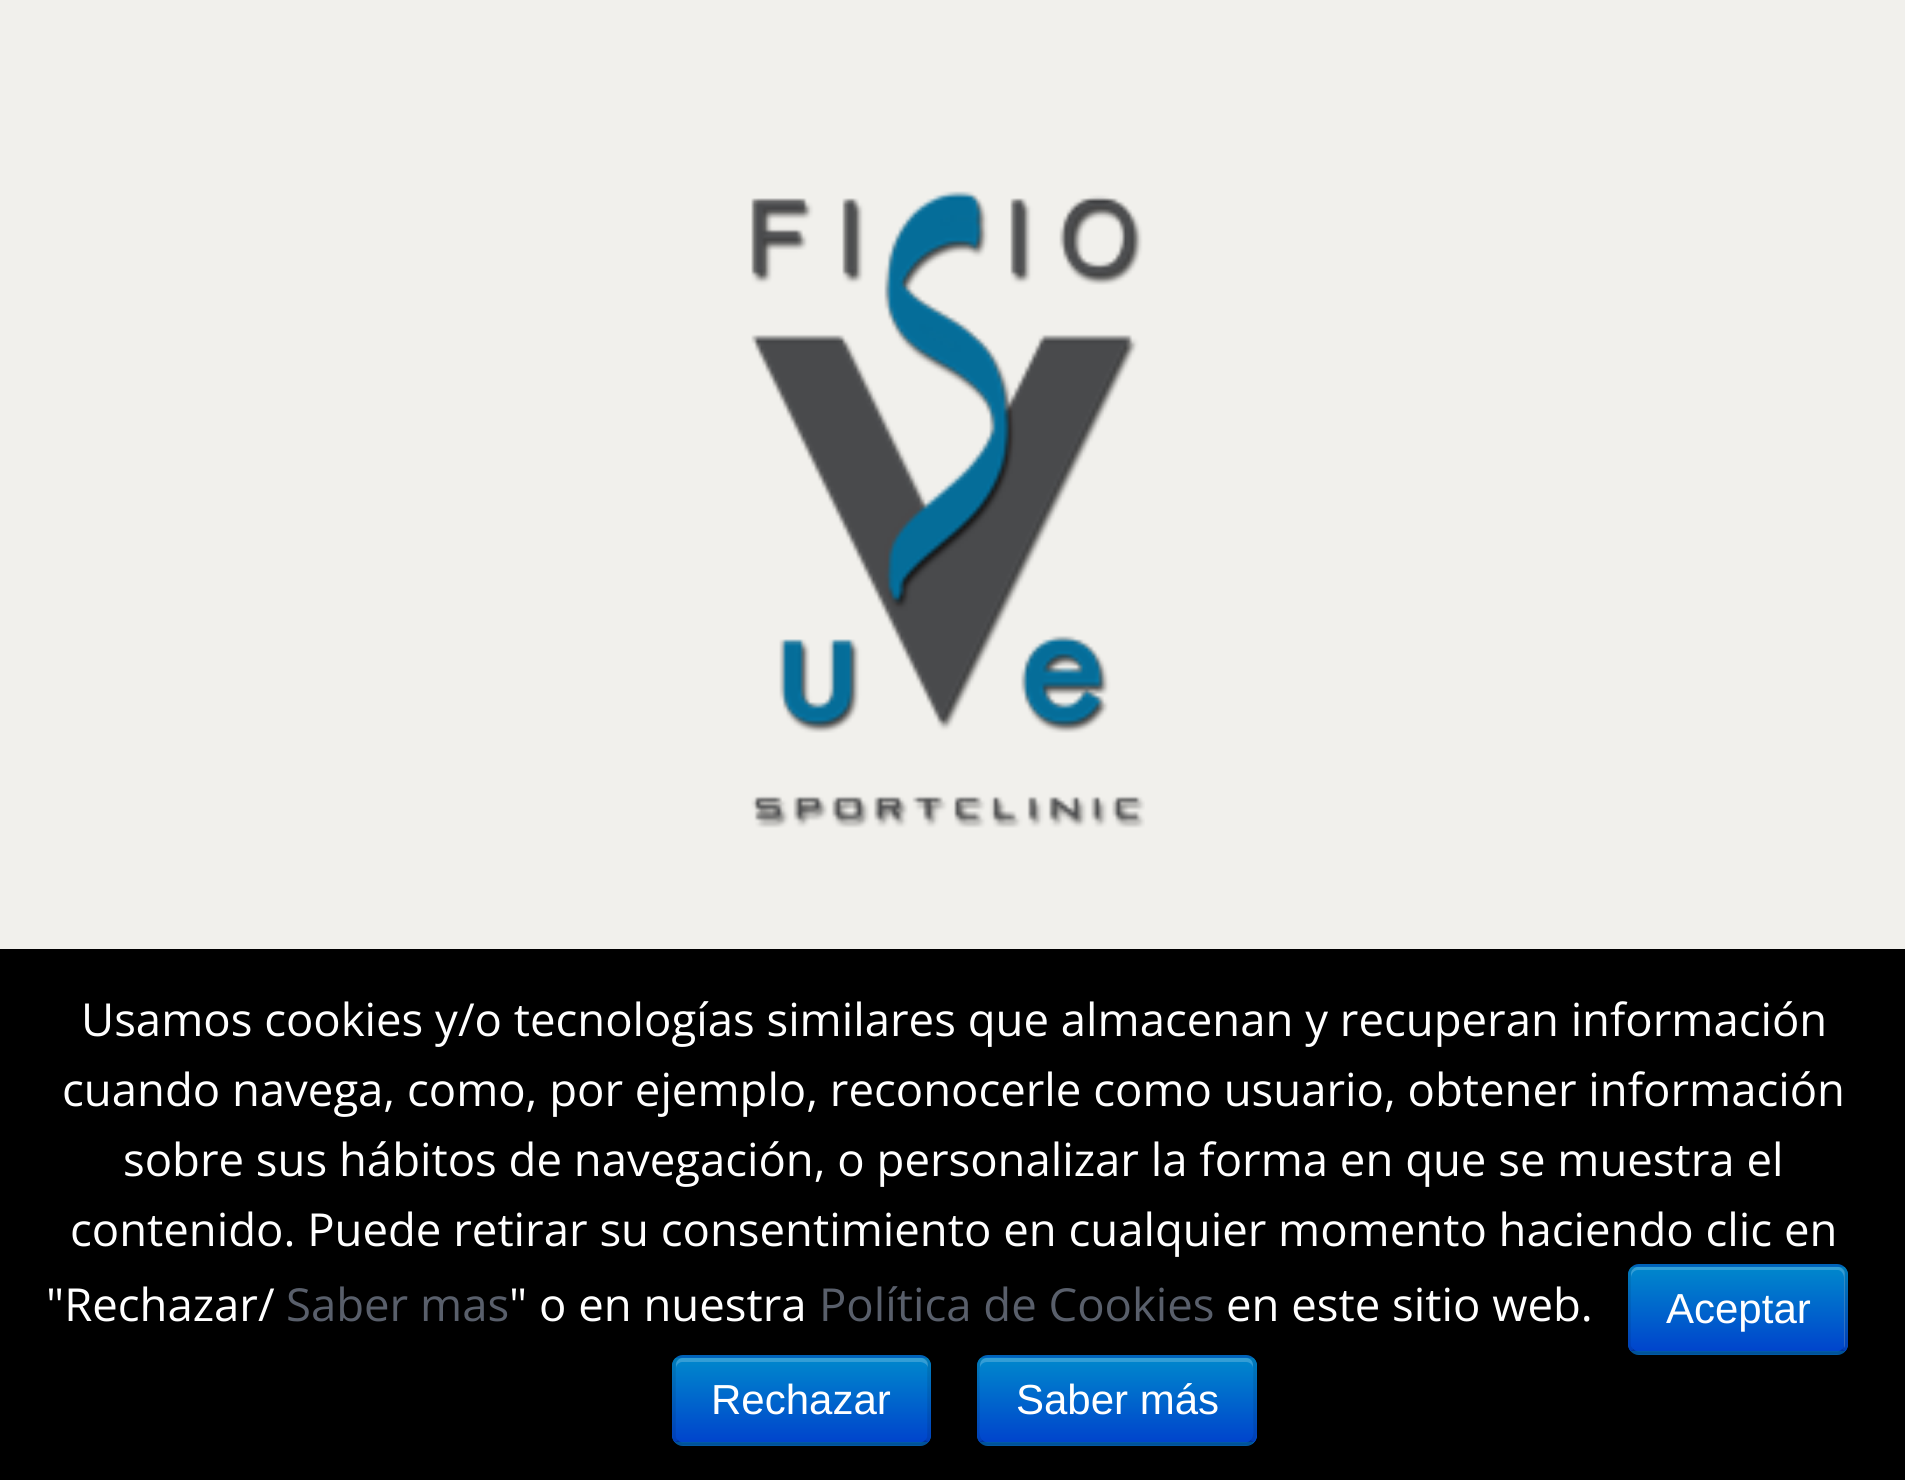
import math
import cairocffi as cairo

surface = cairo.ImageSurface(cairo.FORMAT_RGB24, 1905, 1480)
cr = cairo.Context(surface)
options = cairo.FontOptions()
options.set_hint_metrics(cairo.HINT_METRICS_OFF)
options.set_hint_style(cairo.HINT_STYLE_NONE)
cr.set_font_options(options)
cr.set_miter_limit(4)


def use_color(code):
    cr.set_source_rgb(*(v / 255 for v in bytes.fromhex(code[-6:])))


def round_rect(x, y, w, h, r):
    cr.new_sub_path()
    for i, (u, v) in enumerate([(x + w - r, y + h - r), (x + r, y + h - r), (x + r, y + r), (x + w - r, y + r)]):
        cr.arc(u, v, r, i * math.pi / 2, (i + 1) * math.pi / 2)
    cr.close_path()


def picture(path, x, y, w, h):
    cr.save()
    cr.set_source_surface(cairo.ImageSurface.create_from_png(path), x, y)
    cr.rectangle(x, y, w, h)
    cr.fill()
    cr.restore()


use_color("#f1f0ec")
cr.paint()
picture("img1.png", 751, 191, 394, 637)
use_color("#000000")
cr.rectangle(0, 949, 1905, 531)
cr.fill()
cr.select_font_face("Open Sans")
cr.set_font_size(45.5)
use_color("#ffffff")
cr.move_to(81, 1036)
cr.show_text("Usamos cookies y/o tecnologías similares que almacenan y recuperan información")
cr.move_to(62, 1106)
cr.show_text("cuando navega, como, por ejemplo, reconocerle como usuario, obtener información")
cr.move_to(123, 1176)
cr.show_text("sobre sus hábitos de navegación, o personalizar la forma en que se muestra el")
cr.move_to(70, 1246)
cr.show_text("contenido. Puede retirar su consentimiento en cualquier momento haciendo clic en")
cr.move_to(46, 1321)
cr.show_text("\"Rechazar/")
use_color("#595f6b")
cr.move_to(286, 1321)
cr.show_text("Saber mas")
use_color("#ffffff")
cr.move_to(509, 1321)
cr.show_text("\" o en nuestra")
use_color("#595f6b")
cr.move_to(819, 1321)
cr.show_text("Política de Cookies")
use_color("#ffffff")
cr.move_to(1226, 1321)
cr.show_text("en este sitio web.")
use_color("#006dcc")
round_rect(1628, 1264, 220, 91, 11)
cr.fill()
cr.save()
round_rect(1628, 1264, 220, 91, 11)
cr.clip()
gradient = cairo.LinearGradient(1738, 1267, 1738, 1351)
gradient.add_color_stop_rgba(0, 0, 0.533, 0.8, 1)
gradient.add_color_stop_rgba(1, 0, 0.267, 0.8, 1)
cr.set_source(gradient)
cr.rectangle(1628, 1267, 220, 84)
cr.fill()
cr.restore()
cr.set_source_rgba(1, 1, 1, 0.2)
cr.new_path()
cr.move_to(1638, 1270)
cr.line_to(1838, 1270)
cr.curve_to(1841, 1270, 1844, 1274, 1844, 1278)
cr.line_to(1844, 1348)
cr.curve_to(1845, 1347, 1845, 1345, 1845, 1344)
cr.line_to(1845, 1274)
cr.curve_to(1845, 1270, 1842, 1267, 1838, 1267)
cr.line_to(1638, 1267)
cr.curve_to(1634, 1267, 1631, 1270, 1631, 1274)
cr.line_to(1631, 1278)
cr.curve_to(1631, 1274, 1634, 1270, 1638, 1270)
cr.close_path()
cr.fill()
cr.new_path()
cr.move_to(1843.5, 1350)
cr.curve_to(1842, 1352, 1840, 1353, 1837.5, 1353)
cr.line_to(1638, 1353)
cr.curve_to(1635.5, 1353, 1633.5, 1352, 1632, 1350)
cr.set_source_rgba(0, 0, 0, 0.25)
cr.set_line_width(3.5)
cr.stroke()
cr.new_path()
cr.move_to(1632, 1350)
cr.curve_to(1630, 1348.5, 1629, 1346.5, 1629, 1344)
cr.line_to(1629, 1274)
cr.curve_to(1629, 1271.5, 1630, 1269.5, 1632, 1268)
cr.curve_to(1633.5, 1266, 1635.5, 1265, 1638, 1265)
cr.line_to(1837.5, 1265)
cr.curve_to(1840, 1265, 1842, 1266, 1843.5, 1268)
cr.curve_to(1845.5, 1269.5, 1846, 1271.5, 1846, 1274)
cr.line_to(1846, 1344)
cr.curve_to(1846, 1346.5, 1845.5, 1348.5, 1843.5, 1350)
cr.set_source_rgba(0, 0, 0, 0.1)
cr.stroke()
cr.select_font_face("Liberation Sans")
cr.set_font_size(42)
use_color("#ffffff")
cr.move_to(1666, 1323)
cr.show_text("Aceptar")
use_color("#006dcc")
round_rect(672, 1355, 259, 91, 11)
cr.fill()
cr.save()
round_rect(672, 1355, 259, 91, 11)
cr.clip()
gradient = cairo.LinearGradient(802, 1358, 802, 1442)
gradient.add_color_stop_rgba(0, 0, 0.533, 0.8, 1)
gradient.add_color_stop_rgba(1, 0, 0.267, 0.8, 1)
cr.set_source(gradient)
cr.rectangle(672, 1358, 259, 84)
cr.fill()
cr.restore()
cr.set_source_rgba(1, 1, 1, 0.2)
cr.new_path()
cr.move_to(682, 1362)
cr.line_to(920, 1362)
cr.curve_to(924, 1362, 928, 1365, 928, 1368)
cr.line_to(928, 1365)
cr.curve_to(928, 1361, 925, 1358, 921, 1358)
cr.line_to(683, 1358)
cr.curve_to(679, 1358, 676, 1361, 676, 1365)
cr.line_to(676, 1368)
cr.curve_to(676, 1365, 679, 1362, 682, 1362)
cr.close_path()
cr.fill()
cr.new_path()
cr.move_to(926.5, 1441)
cr.curve_to(925, 1443, 923, 1444, 920.5, 1444)
cr.line_to(682.5, 1444)
cr.curve_to(680, 1444, 678, 1443, 676.5, 1441)
cr.set_source_rgba(0, 0, 0, 0.25)
cr.stroke()
cr.new_path()
cr.move_to(676.5, 1441)
cr.curve_to(674.5, 1439.5, 674, 1437.5, 674, 1435)
cr.line_to(674, 1365)
cr.curve_to(674, 1362.5, 674.5, 1360.5, 676.5, 1359)
cr.curve_to(678, 1357, 680, 1356, 682.5, 1356)
cr.line_to(920.5, 1356)
cr.curve_to(923, 1356, 925, 1357, 926.5, 1359)
cr.curve_to(928.5, 1360.5, 929, 1362.5, 929, 1365)
cr.line_to(929, 1435)
cr.curve_to(929, 1437.5, 928.5, 1439.5, 926.5, 1441)
cr.set_source_rgba(0, 0, 0, 0.1)
cr.stroke()
use_color("#ffffff")
cr.move_to(711, 1414)
cr.show_text("Rechazar")
use_color("#006dcc")
round_rect(977, 1355, 280, 91, 11)
cr.fill()
cr.save()
round_rect(977, 1355, 280, 91, 11)
cr.clip()
gradient = cairo.LinearGradient(1117, 1358, 1117, 1442)
gradient.add_color_stop_rgba(0, 0, 0.533, 0.8, 1)
gradient.add_color_stop_rgba(1, 0, 0.267, 0.8, 1)
cr.set_source(gradient)
cr.rectangle(977, 1358, 280, 84)
cr.fill()
cr.restore()
cr.set_source_rgba(1, 1, 1, 0.2)
cr.new_path()
cr.move_to(987, 1362)
cr.line_to(1246, 1362)
cr.curve_to(1250, 1362, 1253, 1365, 1253, 1368)
cr.line_to(1253, 1365)
cr.curve_to(1253, 1361, 1250, 1358, 1246, 1358)
cr.line_to(987, 1358)
cr.curve_to(983, 1358, 980, 1361, 980, 1365)
cr.line_to(980, 1368)
cr.curve_to(980, 1365, 983, 1362, 987, 1362)
cr.close_path()
cr.fill()
cr.new_path()
cr.move_to(1252, 1441)
cr.curve_to(1250.5, 1443, 1248.5, 1444, 1246, 1444)
cr.line_to(987, 1444)
cr.curve_to(984.5, 1444, 982.5, 1443, 981, 1441)
cr.set_source_rgba(0, 0, 0, 0.25)
cr.stroke()
cr.new_path()
cr.move_to(981, 1441)
cr.curve_to(976.5, 1437, 978, 1428, 978, 1423.5)
cr.line_to(978, 1400)
cr.curve_to(978, 1346, 970.5, 1356, 1030, 1356)
cr.line_to(1246, 1356)
cr.curve_to(1257, 1356.5, 1255, 1370, 1255, 1376.5)
cr.line_to(1255, 1423.5)
cr.curve_to(1255, 1428, 1256.5, 1437, 1252, 1441)
cr.set_source_rgba(0, 0, 0, 0.1)
cr.stroke()
use_color("#ffffff")
cr.move_to(1016, 1414)
cr.show_text("Saber más")
surface.write_to_png("result.png")
